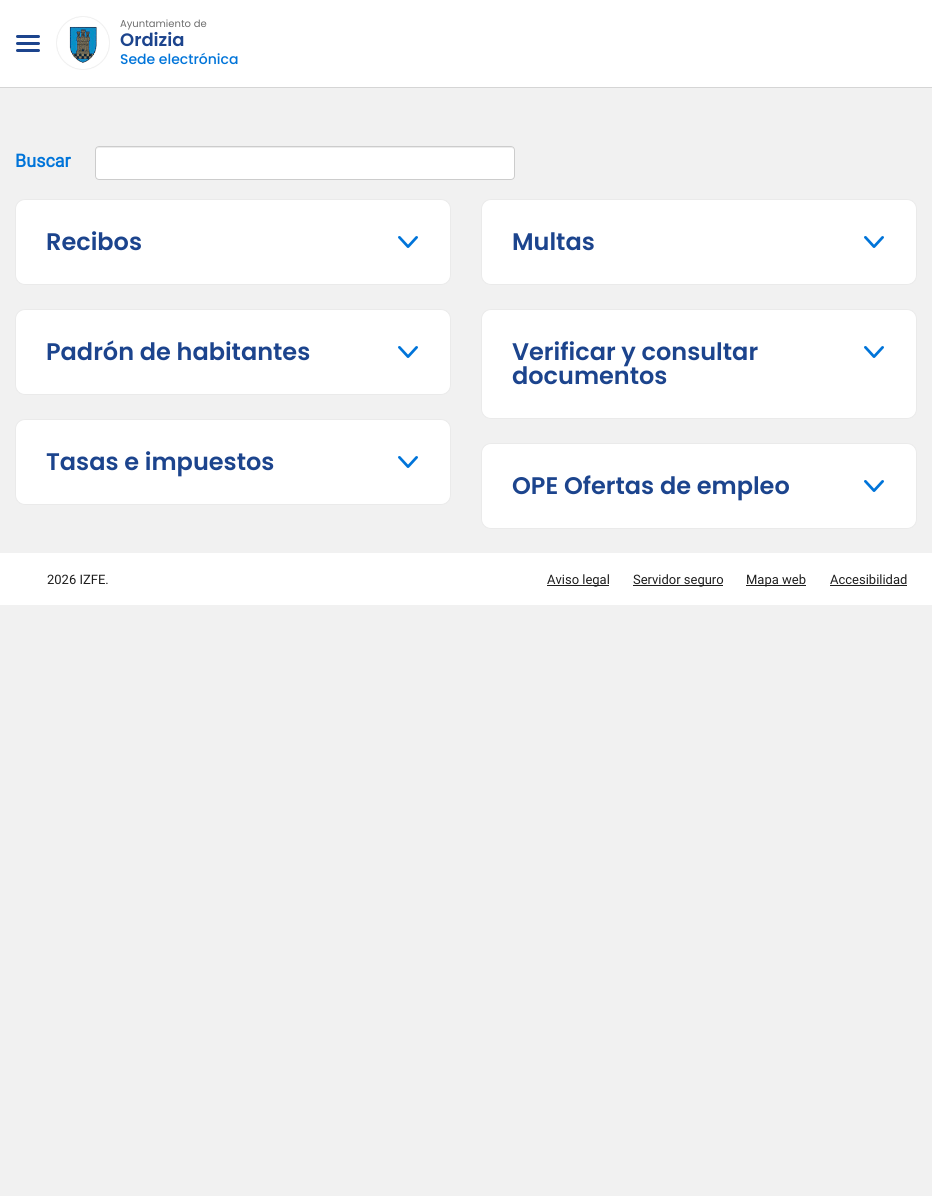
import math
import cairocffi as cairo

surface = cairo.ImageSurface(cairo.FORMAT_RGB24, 932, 1196)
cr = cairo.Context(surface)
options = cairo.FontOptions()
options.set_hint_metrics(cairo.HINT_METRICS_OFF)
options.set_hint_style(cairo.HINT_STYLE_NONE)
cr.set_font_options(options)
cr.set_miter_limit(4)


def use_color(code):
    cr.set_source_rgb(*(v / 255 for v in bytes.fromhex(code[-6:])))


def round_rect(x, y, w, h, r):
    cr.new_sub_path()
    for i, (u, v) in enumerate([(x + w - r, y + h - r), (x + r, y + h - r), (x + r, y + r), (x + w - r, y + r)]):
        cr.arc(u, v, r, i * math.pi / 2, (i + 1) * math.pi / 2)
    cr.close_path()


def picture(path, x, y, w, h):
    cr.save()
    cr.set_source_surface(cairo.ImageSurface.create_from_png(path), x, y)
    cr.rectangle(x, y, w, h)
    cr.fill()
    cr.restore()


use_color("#f1f1f1")
cr.paint()
use_color("#d5d5d5")
cr.rectangle(0, 87, 932, 1)
cr.fill()
use_color("#ffffff")
cr.rectangle(0, 0, 932, 87)
cr.fill()
use_color("#1c448d")
round_rect(16, 42, 24, 3, 1.5)
cr.fill()
round_rect(16, 35, 24, 3, 1.5)
cr.fill()
round_rect(16, 49, 24, 3, 1.5)
cr.fill()
picture("img1.png", 56, 16, 54, 54)
cr.select_font_face("Poppins")
cr.set_font_size(10)
use_color("#6d6d6d")
cr.move_to(120, 27)
cr.show_text("Ayuntamiento de")
cr.select_font_face("Poppins SemiBold")
cr.set_font_size(18)
use_color("#1c448d")
cr.move_to(120, 46)
cr.show_text("Ordizia")
cr.select_font_face("Poppins Medium")
cr.set_font_size(14)
use_color("#0074d9")
cr.move_to(120, 64)
cr.show_text("Sede electrónica")
cr.select_font_face("Roboto", cairo.FONT_SLANT_NORMAL, cairo.FONT_WEIGHT_BOLD)
cr.set_font_size(18)
cr.move_to(15, 167)
cr.show_text("Buscar")
use_color("#ffffff")
round_rect(95, 146, 420, 34, 4)
cr.fill()
use_color("#ececec")
cr.new_path()
cr.move_to(99, 148)
cr.line_to(511, 148)
cr.curve_to(513, 148, 514, 149, 514, 151)
cr.curve_to(514, 149, 513, 147, 511, 147)
cr.line_to(99, 147)
cr.curve_to(97, 147, 96, 149, 96, 151)
cr.curve_to(96, 149, 97, 148, 99, 148)
cr.close_path()
cr.fill()
round_rect(95.5, 146.5, 419, 33, 3.5)
use_color("#cccccc")
cr.set_line_width(1)
cr.stroke()
use_color("#ffffff")
round_rect(15.5, 199.5, 435, 85, 9.5)
cr.fill_preserve()
use_color("#eaeaea")
cr.stroke()
cr.select_font_face("Poppins SemiBold")
cr.set_font_size(24)
use_color("#1c448d")
cr.move_to(46, 250)
cr.show_text("Recibos")
picture("img2.png", 398, 236, 20, 12)
use_color("#ffffff")
round_rect(15.5, 309.5, 435, 85, 9.5)
cr.fill_preserve()
use_color("#eaeaea")
cr.stroke()
use_color("#1c448d")
cr.move_to(46, 360)
cr.show_text("Padrón de habitantes")
picture("img2.png", 398, 346, 20, 12)
use_color("#ffffff")
round_rect(15.5, 419.5, 435, 85, 9.5)
cr.fill_preserve()
use_color("#eaeaea")
cr.stroke()
use_color("#1c448d")
cr.move_to(46, 470)
cr.show_text("Tasas e impuestos")
picture("img2.png", 398, 456, 20, 12)
use_color("#ffffff")
round_rect(481.5, 199.5, 435, 85, 9.5)
cr.fill_preserve()
use_color("#eaeaea")
cr.stroke()
use_color("#1c448d")
cr.move_to(512, 250)
cr.show_text("Multas")
picture("img2.png", 864, 236, 20, 12)
use_color("#ffffff")
round_rect(481.5, 309.5, 435, 109, 9.5)
cr.fill_preserve()
use_color("#eaeaea")
cr.stroke()
use_color("#1c448d")
cr.move_to(512, 360)
cr.show_text("Verificar y consultar")
picture("img2.png", 864, 346, 20, 12)
cr.move_to(512, 384)
cr.show_text("documentos")
use_color("#ffffff")
round_rect(481.5, 443.5, 435, 85, 9.5)
cr.fill_preserve()
use_color("#eaeaea")
cr.stroke()
use_color("#1c448d")
cr.move_to(512, 494)
cr.show_text("OPE Ofertas de empleo")
picture("img2.png", 864, 480, 20, 12)
use_color("#ffffff")
cr.rectangle(0, 553, 932, 52)
cr.fill()
cr.select_font_face("Roboto")
cr.set_font_size(13)
use_color("#1e1e1e")
cr.move_to(47, 584)
cr.show_text("2026 IZFE.")
cr.rectangle(547, 585, 62, 1)
cr.fill()
cr.move_to(547, 584)
cr.show_text("Aviso legal")
cr.rectangle(633, 585, 90, 1)
cr.fill()
cr.move_to(633, 584)
cr.show_text("Servidor seguro")
cr.rectangle(746, 585, 60, 1)
cr.fill()
cr.move_to(746, 584)
cr.show_text("Mapa web")
cr.move_to(830, 584)
cr.show_text("Accesibilidad")
cr.rectangle(830, 585, 77, 1)
cr.fill()
surface.write_to_png("result.png")
